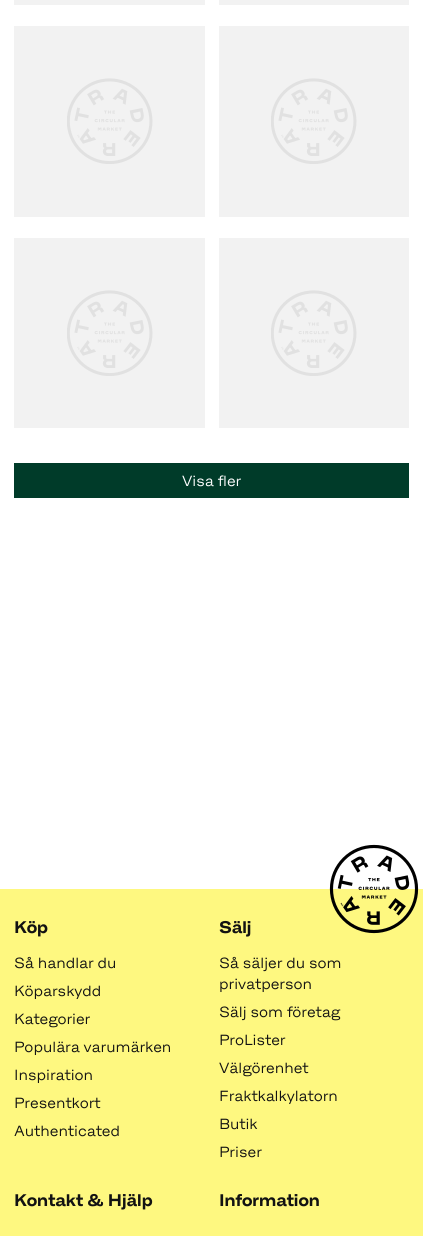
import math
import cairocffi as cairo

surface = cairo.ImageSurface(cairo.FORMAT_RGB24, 423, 1236)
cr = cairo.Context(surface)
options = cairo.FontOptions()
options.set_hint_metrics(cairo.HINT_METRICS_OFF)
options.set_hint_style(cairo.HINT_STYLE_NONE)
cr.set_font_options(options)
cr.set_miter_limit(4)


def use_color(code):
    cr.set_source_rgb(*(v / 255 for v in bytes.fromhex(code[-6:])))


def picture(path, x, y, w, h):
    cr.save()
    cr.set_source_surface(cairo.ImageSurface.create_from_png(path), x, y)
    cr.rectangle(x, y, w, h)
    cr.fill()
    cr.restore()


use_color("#ffffff")
cr.paint()
use_color("#f2f2f2")
cr.rectangle(14, 0, 191, 5)
cr.fill()
cr.rectangle(219, 0, 190, 5)
cr.fill()
cr.rectangle(14, 26, 191, 191)
cr.fill()
picture("img1.png", 67, 78, 86, 86)
cr.rectangle(219, 26, 190, 191)
cr.fill()
picture("img1.png", 271, 78, 86, 86)
cr.rectangle(14, 238, 191, 190)
cr.fill()
picture("img1.png", 67, 290, 86, 86)
cr.rectangle(219, 238, 190, 190)
cr.fill()
picture("img1.png", 271, 290, 86, 86)
use_color("#003b29")
cr.rectangle(14, 463, 395, 35)
cr.fill()
cr.select_font_face("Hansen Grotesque")
cr.set_font_size(14)
use_color("#ffffff")
cr.move_to(182, 486)
cr.show_text("Visa fler")
use_color("#fef880")
cr.rectangle(0, 889, 423, 347)
cr.fill()
picture("img2.png", 329, 844, 90, 90)
cr.select_font_face("Hansen Grotesque", cairo.FONT_SLANT_NORMAL, cairo.FONT_WEIGHT_BOLD)
cr.set_font_size(16)
use_color("#121212")
cr.move_to(14, 933)
cr.show_text("Köp")
cr.select_font_face("Hansen Grotesque")
cr.set_font_size(14)
cr.move_to(14, 968)
cr.show_text("Så handlar du")
cr.move_to(14, 996)
cr.show_text("Köparskydd")
cr.move_to(14, 1024)
cr.show_text("Kategorier")
cr.move_to(14, 1052)
cr.show_text("Populära varumärken")
cr.move_to(14, 1080)
cr.show_text("Inspiration")
cr.move_to(14, 1108)
cr.show_text("Presentkort")
cr.move_to(14, 1136)
cr.show_text("Authenticated")
cr.select_font_face("Hansen Grotesque", cairo.FONT_SLANT_NORMAL, cairo.FONT_WEIGHT_BOLD)
cr.set_font_size(16)
cr.move_to(219, 933)
cr.show_text("Sälj")
cr.select_font_face("Hansen Grotesque")
cr.set_font_size(14)
cr.move_to(219, 968)
cr.show_text("Så säljer du som")
cr.move_to(219, 989)
cr.show_text("privatperson")
cr.move_to(219, 1017)
cr.show_text("Sälj som företag")
cr.move_to(219, 1045)
cr.show_text("ProLister")
cr.move_to(219, 1073)
cr.show_text("Välgörenhet")
cr.move_to(219, 1101)
cr.show_text("Fraktkalkylatorn")
cr.move_to(219, 1129)
cr.show_text("Butik")
cr.move_to(219, 1157)
cr.show_text("Priser")
cr.select_font_face("Hansen Grotesque", cairo.FONT_SLANT_NORMAL, cairo.FONT_WEIGHT_BOLD)
cr.set_font_size(16)
cr.move_to(14, 1206)
cr.show_text("Kontakt & Hjälp")
cr.move_to(219, 1206)
cr.show_text("Information")
surface.write_to_png("result.png")
